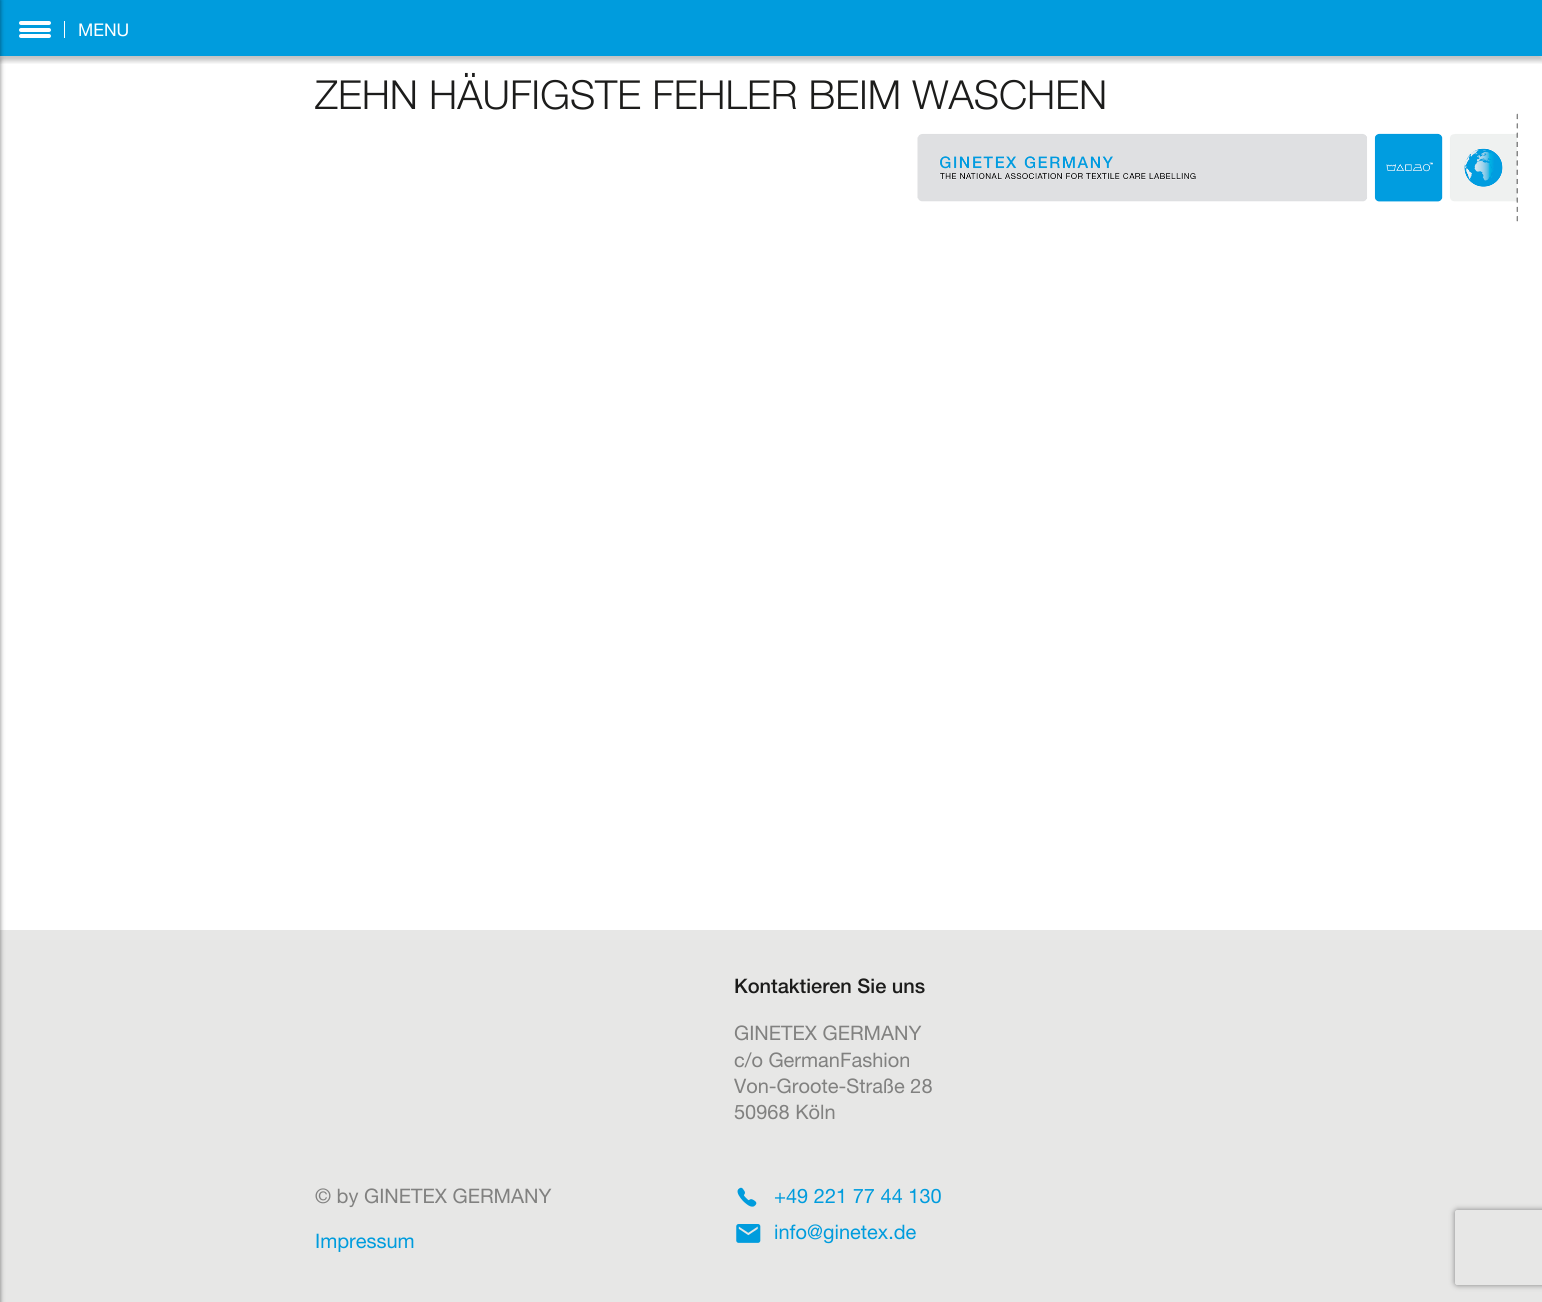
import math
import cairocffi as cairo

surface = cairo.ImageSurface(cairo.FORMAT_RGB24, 1542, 1302)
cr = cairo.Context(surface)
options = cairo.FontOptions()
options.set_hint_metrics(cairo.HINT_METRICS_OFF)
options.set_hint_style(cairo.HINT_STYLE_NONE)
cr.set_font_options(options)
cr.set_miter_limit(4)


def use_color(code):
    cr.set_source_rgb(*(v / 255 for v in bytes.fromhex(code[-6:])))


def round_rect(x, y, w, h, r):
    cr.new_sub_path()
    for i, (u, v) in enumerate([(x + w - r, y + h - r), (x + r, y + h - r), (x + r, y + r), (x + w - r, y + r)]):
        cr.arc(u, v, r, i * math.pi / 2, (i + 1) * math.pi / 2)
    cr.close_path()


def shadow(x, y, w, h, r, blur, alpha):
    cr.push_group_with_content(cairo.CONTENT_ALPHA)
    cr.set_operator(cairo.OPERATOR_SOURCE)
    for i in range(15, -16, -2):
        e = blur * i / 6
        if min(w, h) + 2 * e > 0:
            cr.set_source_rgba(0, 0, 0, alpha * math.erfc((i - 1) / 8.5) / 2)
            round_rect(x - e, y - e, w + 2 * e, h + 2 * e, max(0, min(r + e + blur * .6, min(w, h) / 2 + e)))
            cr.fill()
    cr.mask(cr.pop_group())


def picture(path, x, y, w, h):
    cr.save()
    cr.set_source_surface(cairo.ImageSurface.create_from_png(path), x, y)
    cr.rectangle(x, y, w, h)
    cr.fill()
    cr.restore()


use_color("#ffffff")
cr.paint()
use_color("#009cdd")
cr.rectangle(0, 0, 1542, 56)
cr.fill()
use_color("#e7e7e6")
cr.rectangle(0, 930, 1542, 372)
cr.fill()
use_color("#000000")
shadow(-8, 0, 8, 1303, 0, 2.5, 0.5)
cr.save()
cr.rectangle(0, 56, 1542, 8)
cr.clip()
shadow(0, 5, 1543, 56, 0, 2.5, 0.24)
cr.restore()
use_color("#ffffff")
round_rect(19, 21, 32, 4, 2)
cr.fill()
round_rect(19, 28, 32, 4, 2)
cr.fill()
round_rect(19, 34, 32, 4, 2)
cr.fill()
cr.rectangle(64, 21, 1, 17)
cr.fill()
cr.select_font_face("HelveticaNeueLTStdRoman")
cr.set_font_size(17.5)
cr.move_to(78, 36)
cr.show_text("MENU")
cr.select_font_face("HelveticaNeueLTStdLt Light")
cr.set_font_size(40)
use_color("#1c1c1b")
cr.move_to(315, 109)
cr.show_text("ZEHN HÄUFIGSTE FEHLER BEIM WASCHEN")
picture("img1.png", 917, 113, 601, 109)
cr.select_font_face("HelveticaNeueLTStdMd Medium")
cr.set_font_size(20)
cr.move_to(734, 993)
cr.show_text("Kontaktieren Sie uns")
cr.select_font_face("HelveticaNeueLTStdRoman")
use_color("#818180")
cr.move_to(734, 1040)
cr.show_text("GINETEX GERMANY")
cr.move_to(734, 1067)
cr.show_text("c/o GermanFashion")
cr.move_to(734, 1093)
cr.show_text("Von-Groote-Straße 28")
cr.move_to(734, 1119)
cr.show_text("50968 Köln")
cr.move_to(315, 1203)
cr.show_text("© by GINETEX GERMANY")
use_color("#009cdd")
cr.move_to(315, 1248)
cr.show_text("Impressum")
picture("img2.png", 737, 1187, 20, 20)
cr.move_to(774, 1203)
cr.show_text("+49 221 77 44 130")
picture("img3.png", 736, 1224, 25, 19)
cr.move_to(774, 1239)
cr.show_text("info@ginetex.de")
cr.save()
cr.set_fill_rule(cairo.FILL_RULE_EVEN_ODD)
cr.new_path()
cr.move_to(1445, 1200)
cr.line_to(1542, 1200)
cr.line_to(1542, 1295)
cr.line_to(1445, 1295)
cr.close_path()
cr.move_to(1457.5, 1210)
cr.line_to(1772.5, 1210)
cr.curve_to(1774, 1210, 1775, 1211, 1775, 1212.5)
cr.line_to(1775, 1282.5)
cr.curve_to(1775, 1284, 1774, 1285, 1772.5, 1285)
cr.line_to(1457.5, 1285)
cr.curve_to(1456, 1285, 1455, 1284, 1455, 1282.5)
cr.line_to(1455, 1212.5)
cr.curve_to(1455, 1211, 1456, 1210, 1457.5, 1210)
cr.close_path()
cr.clip()
use_color("#808080")
shadow(1455, 1210, 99, 75, 2.5, 3, 1)
cr.restore()
surface.write_to_png("result.png")
